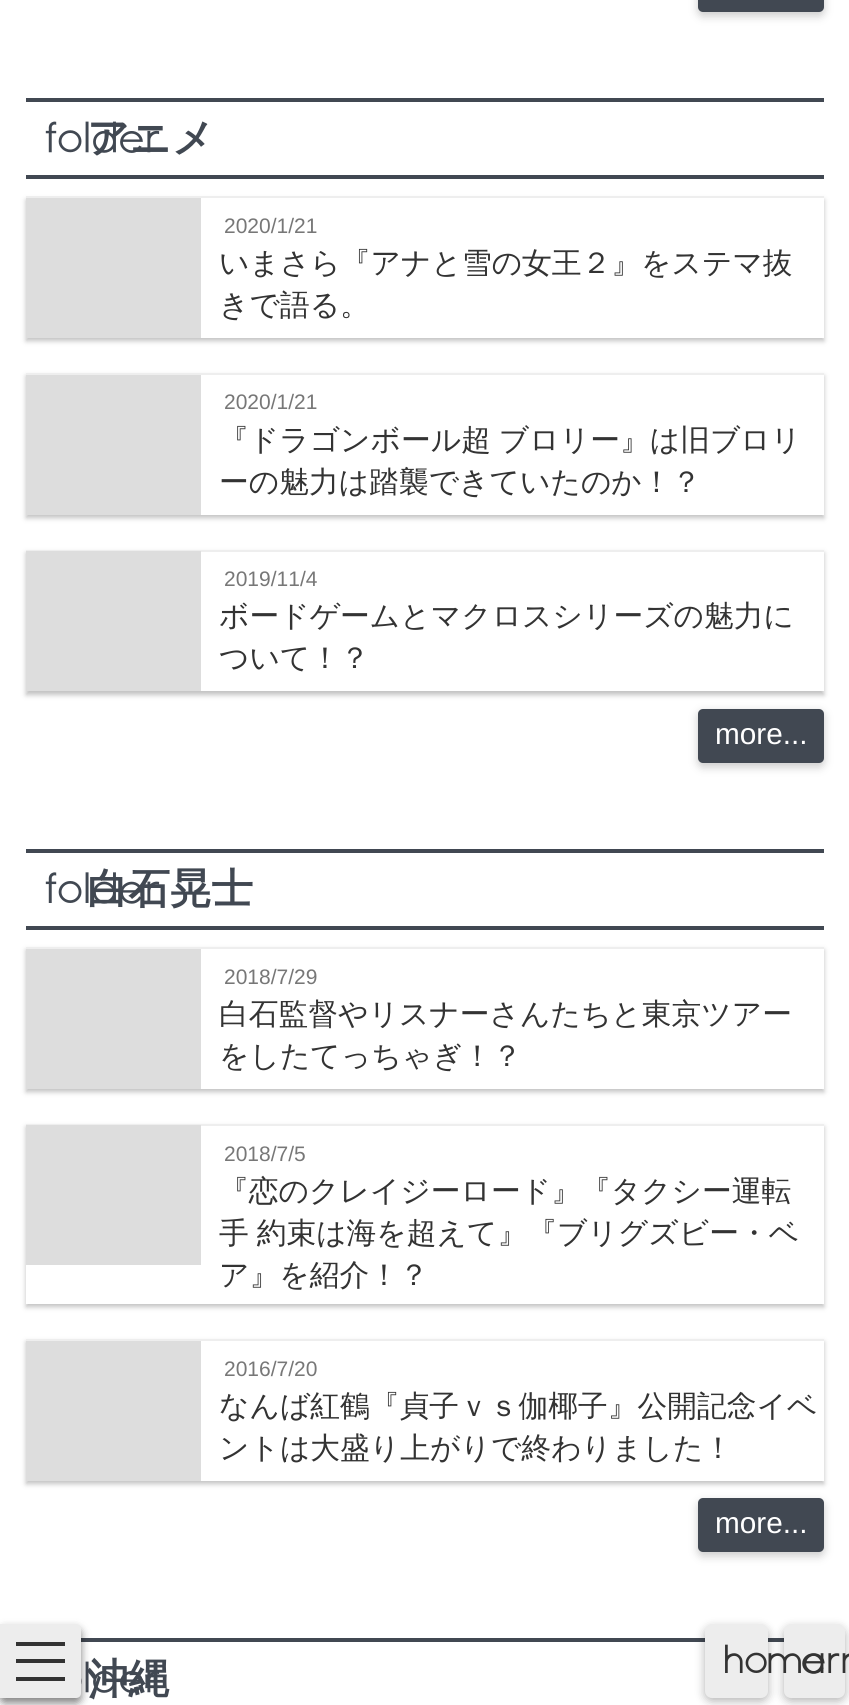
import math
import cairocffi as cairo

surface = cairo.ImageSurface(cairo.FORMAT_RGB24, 849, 1705)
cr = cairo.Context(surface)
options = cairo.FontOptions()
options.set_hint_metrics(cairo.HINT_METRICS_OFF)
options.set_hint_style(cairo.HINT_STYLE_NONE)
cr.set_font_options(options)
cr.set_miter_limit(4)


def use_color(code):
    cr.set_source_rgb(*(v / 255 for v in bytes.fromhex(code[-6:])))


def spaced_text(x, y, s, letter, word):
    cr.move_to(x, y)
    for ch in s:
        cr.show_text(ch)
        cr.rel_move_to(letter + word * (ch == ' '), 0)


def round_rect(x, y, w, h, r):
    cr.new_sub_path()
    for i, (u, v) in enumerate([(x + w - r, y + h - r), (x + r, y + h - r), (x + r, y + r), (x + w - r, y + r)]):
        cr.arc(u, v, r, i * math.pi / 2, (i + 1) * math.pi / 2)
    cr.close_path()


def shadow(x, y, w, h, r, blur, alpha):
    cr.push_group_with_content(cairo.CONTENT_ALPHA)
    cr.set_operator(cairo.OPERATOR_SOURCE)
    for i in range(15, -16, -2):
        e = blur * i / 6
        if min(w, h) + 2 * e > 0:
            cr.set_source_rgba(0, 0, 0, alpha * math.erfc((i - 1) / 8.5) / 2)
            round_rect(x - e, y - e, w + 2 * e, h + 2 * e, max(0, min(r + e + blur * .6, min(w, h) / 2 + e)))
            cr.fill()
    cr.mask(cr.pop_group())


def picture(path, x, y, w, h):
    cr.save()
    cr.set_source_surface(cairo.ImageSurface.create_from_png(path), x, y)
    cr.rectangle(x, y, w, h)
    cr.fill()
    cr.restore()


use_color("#ffffff")
cr.paint()
use_color("#cccccc")
shadow(698, -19, 126, 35, 5, 4.5, 1)
use_color("#414852")
round_rect(698, -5, 126, 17, 5)
cr.fill()
cr.rectangle(26, 98, 798, 4)
cr.fill()
cr.rectangle(26, 175, 798, 4)
cr.fill()
picture("img1.png", 45, 121, 115, 32)
cr.select_font_face("WenQuanYi Zen Hei", cairo.FONT_SLANT_NORMAL, cairo.FONT_WEIGHT_BOLD)
cr.set_font_size(41.5)
cr.move_to(87, 152)
cr.show_text("アニメ")
use_color("#646464")
shadow(26, 200, 798, 141, 0, 2.5, 0.4)
use_color("#ffffff")
cr.rectangle(201, 198, 623, 140)
cr.fill()
use_color("#eeeeee")
cr.rectangle(26, 196, 798, 2)
cr.fill()
use_color("#dddddd")
cr.rectangle(26, 198, 175, 140)
cr.fill()
cr.select_font_face("Liberation Sans")
cr.set_font_size(21)
use_color("#777777")
cr.move_to(224, 233)
cr.show_text("2020/1/21")
cr.select_font_face("WenQuanYi Zen Hei Medium")
cr.set_font_size(29.75)
use_color("#333333")
cr.move_to(219, 273)
cr.show_text("いまさら『アナと雪の女王２』をステマ抜")
cr.move_to(219, 315)
cr.show_text("きで語る。")
use_color("#646464")
shadow(26, 376, 798, 142, 0, 2.5, 0.4)
use_color("#ffffff")
cr.rectangle(201, 375, 623, 140)
cr.fill()
use_color("#eeeeee")
cr.rectangle(26, 373, 798, 2)
cr.fill()
use_color("#dddddd")
cr.rectangle(26, 375, 175, 140)
cr.fill()
cr.select_font_face("Liberation Sans")
cr.set_font_size(21)
use_color("#777777")
cr.move_to(224, 409)
cr.show_text("2020/1/21")
cr.select_font_face("WenQuanYi Zen Hei Medium")
cr.set_font_size(29.75)
use_color("#333333")
spaced_text(219, 450, "『ドラゴンボール超 ブロリー』は旧ブロリ", 0, -1)
cr.move_to(219, 492)
cr.show_text("ーの魅力は踏襲できていたのか！？")
use_color("#646464")
shadow(26, 553, 798, 142, 0, 2.5, 0.4)
use_color("#ffffff")
cr.rectangle(201, 552, 623, 139)
cr.fill()
use_color("#eeeeee")
cr.rectangle(26, 550, 798, 2)
cr.fill()
use_color("#dddddd")
cr.rectangle(26, 551, 175, 140)
cr.fill()
cr.select_font_face("Liberation Sans")
cr.set_font_size(21)
use_color("#777777")
cr.move_to(224, 586)
cr.show_text("2019/11/4")
cr.select_font_face("WenQuanYi Zen Hei Medium")
cr.set_font_size(29.75)
use_color("#333333")
cr.move_to(219, 626)
cr.show_text("ボードゲームとマクロスシリーズの魅力に")
cr.move_to(219, 668)
cr.show_text("ついて！？")
use_color("#cccccc")
shadow(698, 712, 126, 55, 5, 4.5, 1)
use_color("#414852")
round_rect(698, 709, 126, 54, 5)
cr.fill()
cr.select_font_face("Liberation Sans")
use_color("#ffffff")
cr.move_to(715, 744)
cr.show_text("more...")
use_color("#414852")
cr.rectangle(26, 849, 798, 4)
cr.fill()
cr.rectangle(26, 926, 798, 4)
cr.fill()
picture("img2.png", 45, 872, 115, 32)
cr.select_font_face("WenQuanYi Zen Hei", cairo.FONT_SLANT_NORMAL, cairo.FONT_WEIGHT_BOLD)
cr.set_font_size(41.5)
cr.move_to(87, 903)
cr.show_text("白石晃士")
use_color("#646464")
shadow(26, 950, 798, 142, 0, 2.5, 0.4)
use_color("#ffffff")
cr.rectangle(201, 949, 623, 140)
cr.fill()
use_color("#eeeeee")
cr.rectangle(26, 947, 798, 2)
cr.fill()
use_color("#dddddd")
cr.rectangle(26, 949, 175, 140)
cr.fill()
cr.select_font_face("Liberation Sans")
cr.set_font_size(21)
use_color("#777777")
cr.move_to(224, 984)
cr.show_text("2018/7/29")
cr.select_font_face("WenQuanYi Zen Hei Medium")
cr.set_font_size(29.75)
use_color("#333333")
cr.move_to(219, 1024)
cr.show_text("白石監督やリスナーさんたちと東京ツアー")
cr.move_to(219, 1066)
cr.show_text("をしたてっちゃぎ！？")
use_color("#646464")
shadow(26, 1127, 798, 180, 0, 2.5, 0.4)
use_color("#ffffff")
cr.rectangle(26, 1126, 798, 178)
cr.fill()
use_color("#eeeeee")
cr.rectangle(26, 1124, 798, 2)
cr.fill()
use_color("#dddddd")
cr.rectangle(26, 1125, 175, 140)
cr.fill()
cr.select_font_face("Liberation Sans")
cr.set_font_size(21)
use_color("#777777")
cr.move_to(224, 1161)
cr.show_text("2018/7/5")
cr.select_font_face("WenQuanYi Zen Hei Medium")
cr.set_font_size(29.75)
use_color("#333333")
cr.move_to(219, 1201)
cr.show_text("『恋のクレイジーロード』『タクシー運転")
spaced_text(219, 1243, "手 約束は海を超えて』『ブリグズビー・ベ", 0, -1)
cr.move_to(219, 1285)
cr.show_text("ア』を紹介！？")
use_color("#646464")
shadow(26, 1342, 798, 142, 0, 2.5, 0.4)
use_color("#ffffff")
cr.rectangle(201, 1341, 623, 140)
cr.fill()
use_color("#eeeeee")
cr.rectangle(26, 1339, 798, 2)
cr.fill()
use_color("#dddddd")
cr.rectangle(26, 1341, 175, 140)
cr.fill()
cr.select_font_face("Liberation Sans")
cr.set_font_size(21)
use_color("#777777")
cr.move_to(224, 1376)
cr.show_text("2016/7/20")
cr.select_font_face("WenQuanYi Zen Hei Medium")
cr.set_font_size(29.75)
use_color("#333333")
cr.move_to(219, 1416)
cr.show_text("なんば紅鶴『貞子ｖｓ伽椰子』公開記念イベ")
cr.move_to(219, 1458)
cr.show_text("ントは大盛り上がりで終わりました！")
use_color("#cccccc")
shadow(698, 1502, 126, 54, 5, 4.5, 1)
use_color("#414852")
round_rect(698, 1498, 126, 54, 5)
cr.fill()
cr.select_font_face("Liberation Sans")
use_color("#ffffff")
cr.move_to(715, 1533)
cr.show_text("more...")
use_color("#414852")
cr.rectangle(81, 1638, 703, 4)
cr.fill()
picture("img3.png", 81, 1661, 79, 32)
cr.select_font_face("WenQuanYi Zen Hei", cairo.FONT_SLANT_NORMAL, cairo.FONT_WEIGHT_BOLD)
cr.set_font_size(41.5)
cr.move_to(87, 1693)
cr.show_text("沖縄")
use_color("#000000")
shadow(0, 1629, 81, 74, 5, 4.5, 0.5)
use_color("#ededed")
cr.new_path()
cr.move_to(0, 1624)
cr.line_to(76, 1624)
cr.curve_to(79, 1624, 81, 1626, 81, 1629)
cr.line_to(81, 1693)
cr.curve_to(81, 1696, 79, 1698, 76, 1698)
cr.line_to(0, 1698)
cr.close_path()
cr.fill()
use_color("#333333")
cr.rectangle(16, 1659, 49, 4)
cr.fill()
cr.rectangle(16, 1642, 49, 4)
cr.fill()
cr.rectangle(16, 1677, 49, 4)
cr.fill()
use_color("#000000")
shadow(705, 1628, 63, 73, 7, 5, 0.3)
use_color("#ededed")
round_rect(705, 1624, 63, 74, 7)
cr.fill()
use_color("#000000")
shadow(784, 1628, 61, 73, 7, 5, 0.3)
use_color("#ededed")
round_rect(784, 1624, 61, 74, 7)
cr.fill()
picture("img5.png", 802, 1653, 47, 21)
picture("img4.png", 725, 1644, 100, 30)
surface.write_to_png("result.png")
